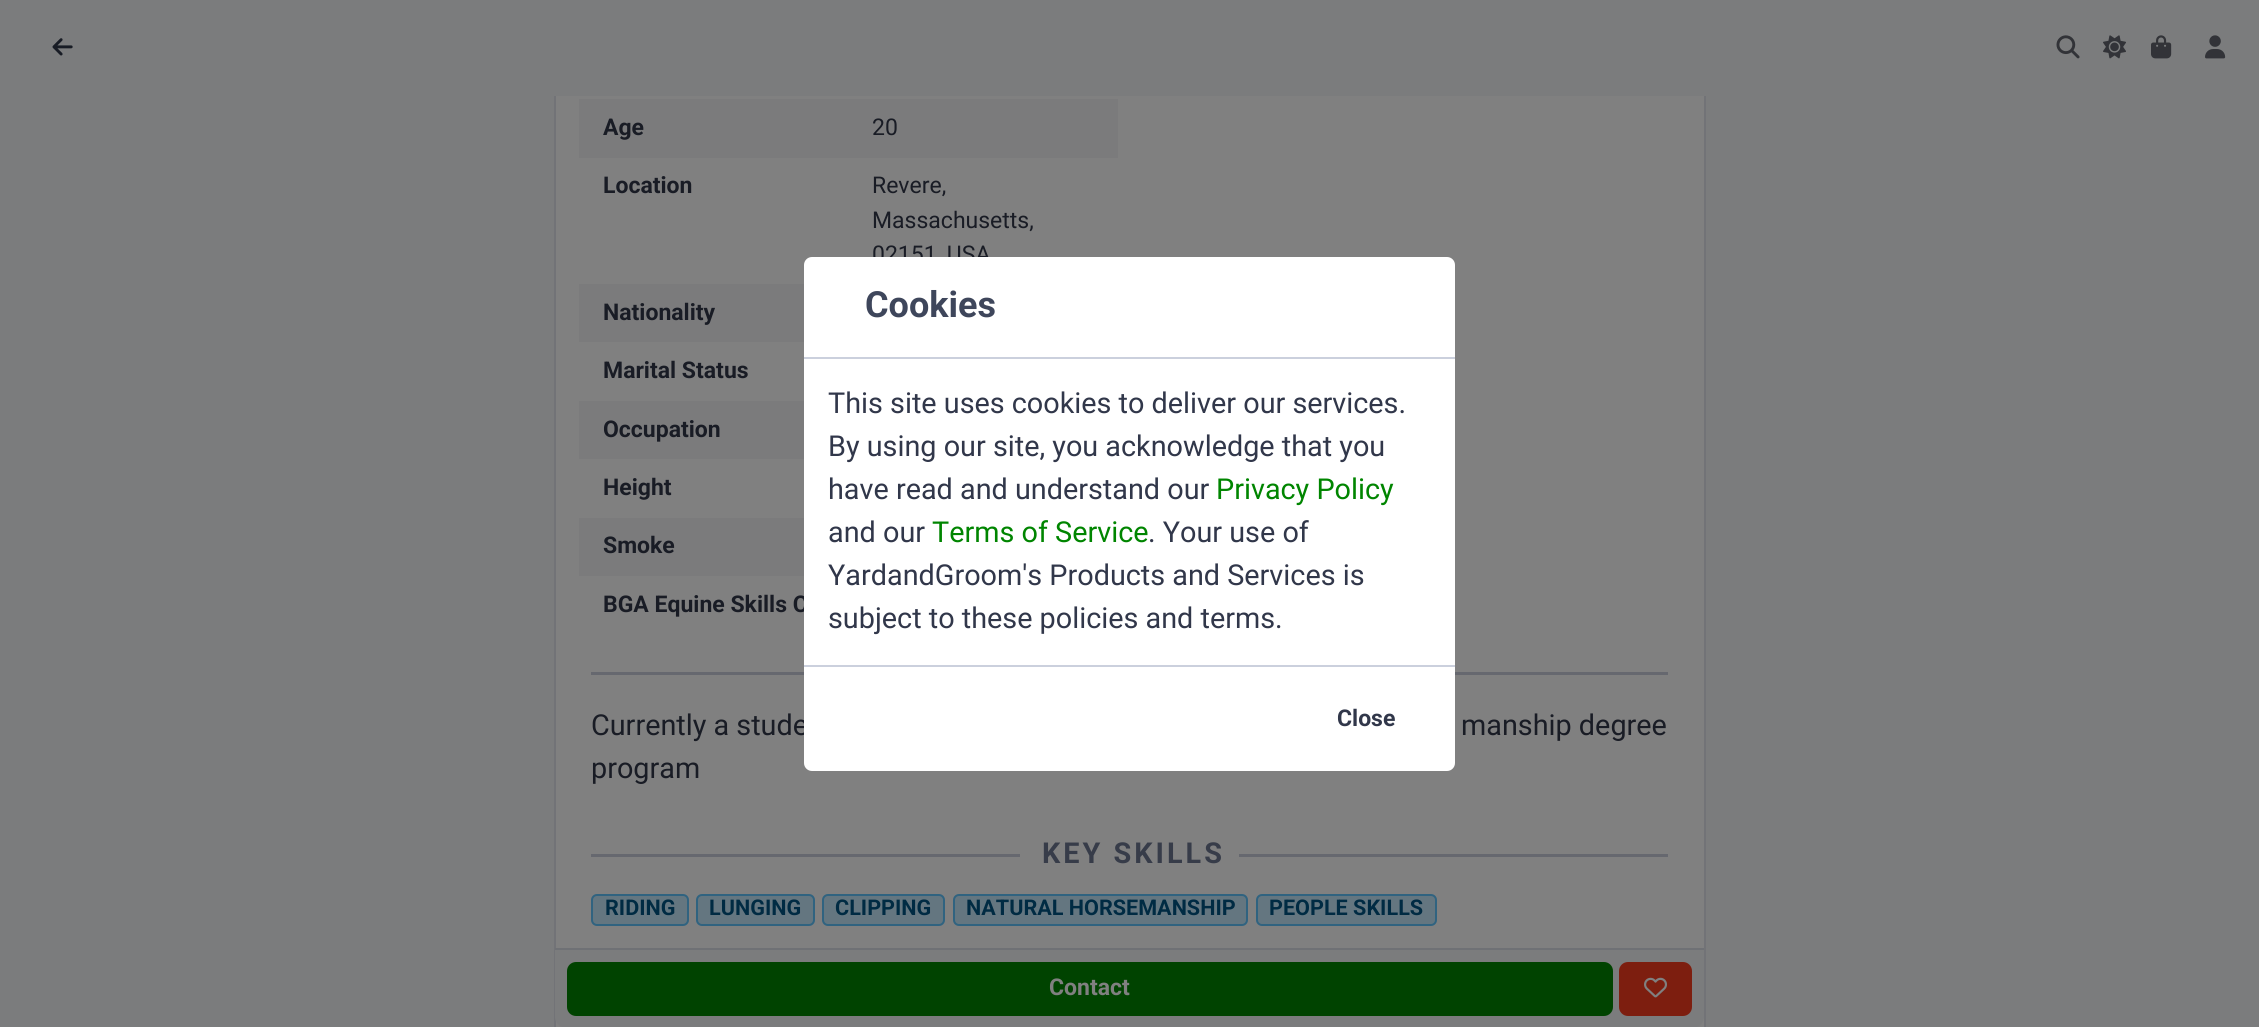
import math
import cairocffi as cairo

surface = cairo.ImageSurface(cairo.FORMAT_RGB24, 2259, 1027)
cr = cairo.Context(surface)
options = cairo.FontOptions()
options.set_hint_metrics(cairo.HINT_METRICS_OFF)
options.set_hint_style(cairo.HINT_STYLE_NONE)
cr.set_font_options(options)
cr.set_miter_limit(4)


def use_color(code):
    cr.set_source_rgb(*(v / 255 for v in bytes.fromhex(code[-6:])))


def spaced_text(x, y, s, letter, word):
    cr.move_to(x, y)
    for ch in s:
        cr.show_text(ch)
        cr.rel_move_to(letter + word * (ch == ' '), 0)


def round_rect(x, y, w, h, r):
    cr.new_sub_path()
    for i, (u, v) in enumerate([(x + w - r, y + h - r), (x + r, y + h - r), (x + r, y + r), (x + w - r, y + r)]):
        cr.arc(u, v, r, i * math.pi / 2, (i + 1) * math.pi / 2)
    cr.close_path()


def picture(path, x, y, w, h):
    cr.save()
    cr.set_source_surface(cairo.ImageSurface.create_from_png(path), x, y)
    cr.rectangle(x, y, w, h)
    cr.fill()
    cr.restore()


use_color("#7b7c7d")
cr.paint()
use_color("#808080")
cr.rectangle(556, 96, 1148, 931)
cr.fill()
cr.rectangle(555, -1, 1150, 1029)
use_color("#727377")
cr.stroke()
use_color("#7b7c7d")
cr.rectangle(554, 0, 1152, 96)
cr.fill()
picture("img1.png", 52, 38, 21, 18)
picture("img2.png", 2056, 35, 24, 24)
picture("img3.png", 2103, 35, 23, 24)
picture("img4.png", 2151, 35, 21, 24)
picture("img5.png", 2205, 35, 21, 24)
use_color("#7b7b7c")
cr.rectangle(579, 99, 539, 59)
cr.fill()
cr.select_font_face("Roboto", cairo.FONT_SLANT_NORMAL, cairo.FONT_WEIGHT_BOLD)
cr.set_font_size(23)
use_color("#191c25")
cr.move_to(603, 135)
cr.show_text("Age")
cr.select_font_face("Roboto")
cr.move_to(872, 135)
cr.show_text("20")
cr.select_font_face("Roboto", cairo.FONT_SLANT_NORMAL, cairo.FONT_WEIGHT_BOLD)
cr.move_to(603, 193)
cr.show_text("Location")
cr.select_font_face("Roboto")
cr.move_to(872, 193)
cr.show_text("Revere,")
cr.move_to(872, 228)
cr.show_text("Massachusetts,")
cr.move_to(872, 262)
cr.show_text("02151, USA")
use_color("#7b7b7c")
cr.rectangle(579, 284, 225, 58)
cr.fill()
cr.select_font_face("Roboto", cairo.FONT_SLANT_NORMAL, cairo.FONT_WEIGHT_BOLD)
use_color("#191c25")
cr.move_to(603, 320)
cr.show_text("Nationality")
cr.move_to(603, 378)
cr.show_text("Marital Status")
use_color("#7b7b7c")
cr.rectangle(579, 401, 225, 58)
cr.fill()
use_color("#191c25")
cr.move_to(603, 437)
cr.show_text("Occupation")
cr.move_to(603, 495)
cr.show_text("Height")
use_color("#7b7b7c")
cr.rectangle(579, 518, 225, 58)
cr.fill()
use_color("#191c25")
cr.move_to(603, 553)
cr.show_text("Smoke")
cr.move_to(603, 612)
cr.show_text("BGA Equine Skills C")
use_color("#66686f")
cr.rectangle(591, 672, 213, 3)
cr.fill()
cr.rectangle(1455, 672, 213, 3)
cr.fill()
cr.select_font_face("Roboto")
cr.set_font_size(28.8)
use_color("#191c25")
cr.move_to(591, 735)
cr.show_text("Currently a stude")
cr.move_to(1461, 735)
cr.show_text("manship degree")
cr.move_to(591, 778)
cr.show_text("program")
use_color("#66686f")
cr.rectangle(591, 854, 429, 3)
cr.fill()
cr.select_font_face("Roboto", cairo.FONT_SLANT_NORMAL, cairo.FONT_WEIGHT_BOLD)
use_color("#373c49")
spaced_text(1042, 863, "KEY SKILLS", 3, 0)
use_color("#66686f")
cr.rectangle(1239, 854, 429, 3)
cr.fill()
use_color("#647680")
round_rect(592, 895, 96, 30, 5)
cr.fill_preserve()
use_color("#306380")
cr.stroke()
cr.set_font_size(21.6)
use_color("#002b43")
cr.move_to(605, 915)
cr.show_text("RIDING")
use_color("#647680")
round_rect(697, 895, 117, 30, 5)
cr.fill_preserve()
use_color("#306380")
cr.stroke()
use_color("#002b43")
cr.move_to(709, 915)
cr.show_text("LUNGING")
use_color("#647680")
round_rect(823, 895, 121, 30, 5)
cr.fill_preserve()
use_color("#306380")
cr.stroke()
use_color("#002b43")
cr.move_to(835, 915)
cr.show_text("CLIPPING")
use_color("#647680")
round_rect(954, 895, 293, 30, 5)
cr.fill_preserve()
use_color("#306380")
cr.stroke()
use_color("#002b43")
cr.move_to(966, 915)
cr.show_text("NATURAL HORSEMANSHIP")
use_color("#647680")
round_rect(1257, 895, 179, 30, 5)
cr.fill_preserve()
use_color("#306380")
cr.stroke()
use_color("#002b43")
cr.move_to(1269, 915)
cr.show_text("PEOPLE SKILLS")
use_color("#7b7c7d")
cr.new_path()
cr.move_to(555, 948)
cr.line_to(1704, 948)
cr.line_to(1704, 1017)
cr.curve_to(1704, 1023, 1699, 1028, 1693, 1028)
cr.line_to(566, 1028)
cr.curve_to(560, 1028, 555, 1023, 555, 1017)
cr.close_path()
cr.fill()
use_color("#6f7175")
cr.rectangle(555, 948, 1149, 2)
cr.fill()
use_color("#004300")
round_rect(567, 962, 1046, 54, 9)
cr.fill()
cr.set_font_size(23)
use_color("#808080")
cr.move_to(1049, 995)
cr.show_text("Contact")
use_color("#7d1e0f")
round_rect(1619, 962, 73, 54, 9)
cr.fill()
picture("img6.png", 1644, 977, 23, 21)
use_color("#ffffff")
round_rect(804, 257, 651, 514, 8)
cr.fill()
use_color("#cbd0dd")
cr.rectangle(804, 357, 651, 2)
cr.fill()
cr.set_font_size(36)
use_color("#3e465b")
cr.move_to(865, 317)
cr.show_text("Cookies")
cr.select_font_face("Roboto")
cr.set_font_size(28.8)
use_color("#31374a")
cr.move_to(828, 413)
cr.show_text("This site uses cookies to deliver our services.")
cr.move_to(828, 456)
cr.show_text("By using our site, you acknowledge that you")
cr.move_to(828, 499)
cr.show_text("have read and understand our")
use_color("#008500")
cr.move_to(1216, 499)
cr.show_text("Privacy Policy")
use_color("#31374a")
cr.move_to(828, 542)
cr.show_text("and our")
use_color("#008500")
cr.move_to(932, 542)
cr.show_text("Terms of Service")
use_color("#31374a")
cr.move_to(1148, 542)
cr.show_text(". Your use of")
cr.move_to(828, 585)
cr.show_text("YardandGroom's Products and Services is")
cr.move_to(828, 628)
cr.show_text("subject to these policies and terms.")
use_color("#cbd0dd")
cr.rectangle(804, 665, 651, 2)
cr.fill()
cr.select_font_face("Roboto", cairo.FONT_SLANT_NORMAL, cairo.FONT_WEIGHT_BOLD)
cr.set_font_size(23)
use_color("#31374a")
cr.move_to(1337, 726)
cr.show_text("Close")
surface.write_to_png("result.png")
